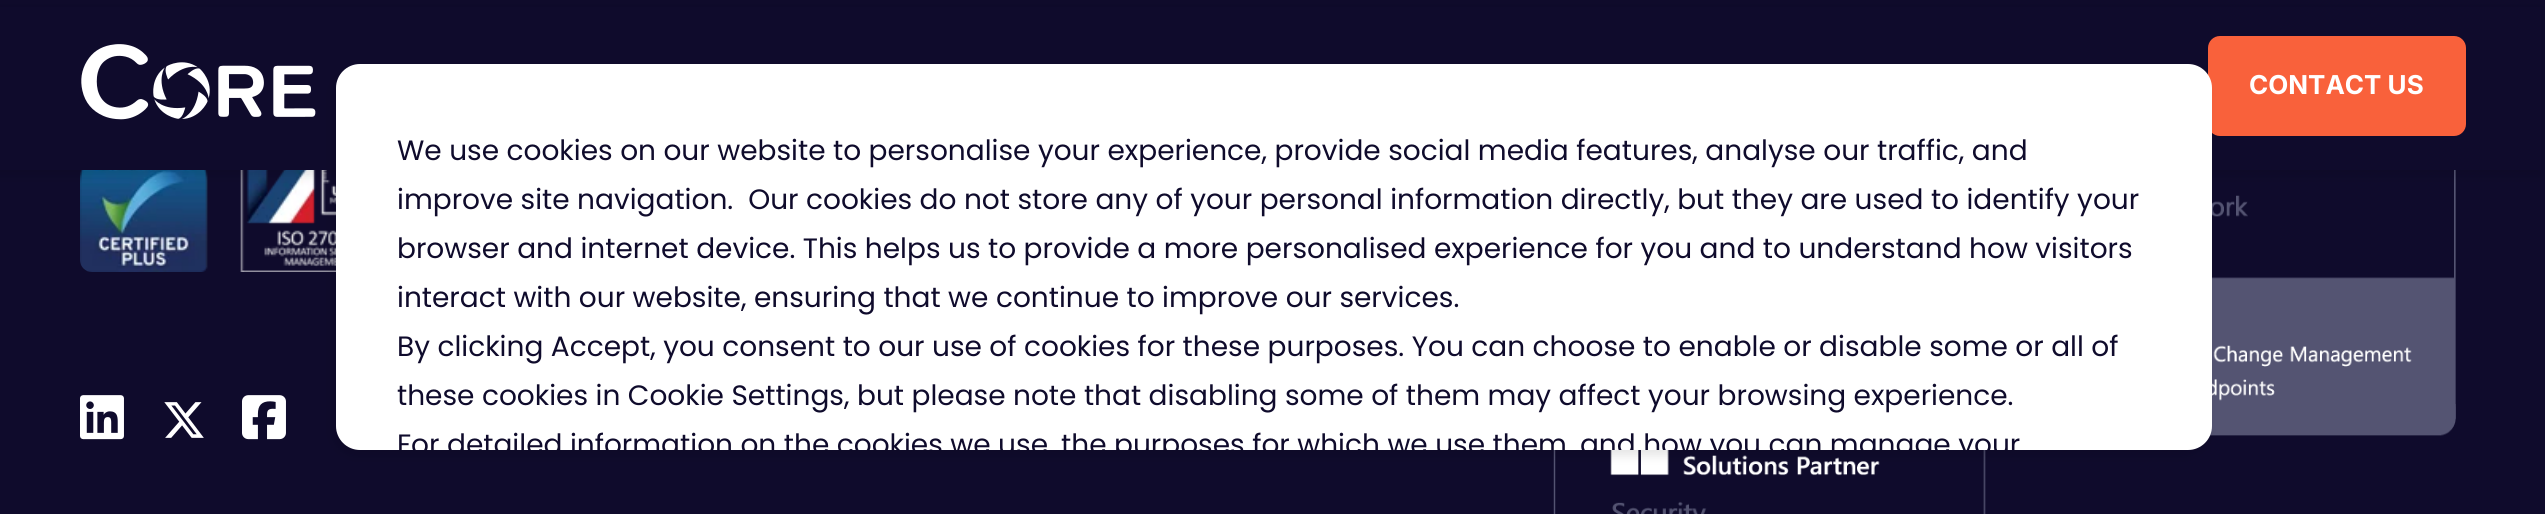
import math
import cairocffi as cairo

surface = cairo.ImageSurface(cairo.FORMAT_RGB24, 2545, 514)
cr = cairo.Context(surface)
options = cairo.FontOptions()
options.set_hint_metrics(cairo.HINT_METRICS_OFF)
options.set_hint_style(cairo.HINT_STYLE_NONE)
cr.set_font_options(options)
cr.set_miter_limit(4)


def use_color(code):
    cr.set_source_rgb(*(v / 255 for v in bytes.fromhex(code[-6:])))


def round_rect(x, y, w, h, r):
    cr.new_sub_path()
    for i, (u, v) in enumerate([(x + w - r, y + h - r), (x + r, y + h - r), (x + r, y + r), (x + w - r, y + r)]):
        cr.arc(u, v, r, i * math.pi / 2, (i + 1) * math.pi / 2)
    cr.close_path()


def shadow(x, y, w, h, r, blur, alpha):
    cr.push_group_with_content(cairo.CONTENT_ALPHA)
    cr.set_operator(cairo.OPERATOR_SOURCE)
    for i in range(15, -16, -2):
        e = blur * i / 6
        if min(w, h) + 2 * e > 0:
            cr.set_source_rgba(0, 0, 0, alpha * math.erfc((i - 1) / 8.5) / 2)
            round_rect(x - e, y - e, w + 2 * e, h + 2 * e, max(0, min(r + e + blur * .6, min(w, h) / 2 + e)))
            cr.fill()
    cr.mask(cr.pop_group())


def picture(path, x, y, w, h):
    cr.save()
    cr.set_source_surface(cairo.ImageSurface.create_from_png(path), x, y)
    cr.rectangle(x, y, w, h)
    cr.fill()
    cr.restore()


use_color("#0f0b2c")
cr.paint()
picture("img2.png", 80, 170, 256, 102)
picture("img6.png", 1553, 170, 903, 344)
use_color("#000000")
shadow(-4, 6, 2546, 170, 0, 5, 0.1)
use_color("#0f0b2c")
cr.rectangle(0, 7, 2541, 163)
cr.fill()
picture("img1.png", 81, 44, 235, 76)
use_color("#f9613b")
round_rect(2208, 36, 258, 100, 12)
cr.fill()
cr.select_font_face("Inter", cairo.FONT_SLANT_NORMAL, cairo.FONT_WEIGHT_BOLD)
cr.set_font_size(26)
use_color("#ffffff")
cr.move_to(2249, 94)
cr.show_text("CONTACT US")
picture("img3.png", 80, 395, 44, 45)
picture("img4.png", 164, 402, 40, 36)
picture("img5.png", 242, 395, 44, 45)
use_color("#000000")
shadow(332, 70, 1876, 386, 24, 5, 0.1)
use_color("#ffffff")
round_rect(336, 64, 1876, 386, 24)
cr.fill()
cr.select_font_face("Poppins")
cr.set_font_size(28)
use_color("#0f0b2c")
cr.move_to(397, 160)
cr.show_text("We use cookies on our website to personalise your experience, provide social media features, analyse our traffic, and")
cr.move_to(397, 209)
cr.show_text("improve site navigation.  Our cookies do not store any of your personal information directly, but they are used to identify your")
cr.move_to(397, 258)
cr.show_text("browser and internet device. This helps us to provide a more personalised experience for you and to understand how visitors")
cr.move_to(397, 307)
cr.show_text("interact with our website, ensuring that we continue to improve our services.")
cr.move_to(397, 356)
cr.show_text("By clicking Accept, you consent to our use of cookies for these purposes. You can choose to enable or disable some or all of")
cr.move_to(397, 405)
cr.show_text("these cookies in Cookie Settings, but please note that disabling some of them may affect your browsing experience.")
cr.save()
round_rect(336, 64, 1876, 386, 24)
cr.clip()
cr.move_to(397, 454)
cr.show_text("For detailed information on the cookies we use, the purposes for which we use them, and how you can manage your")
cr.restore()
surface.write_to_png("result.png")
